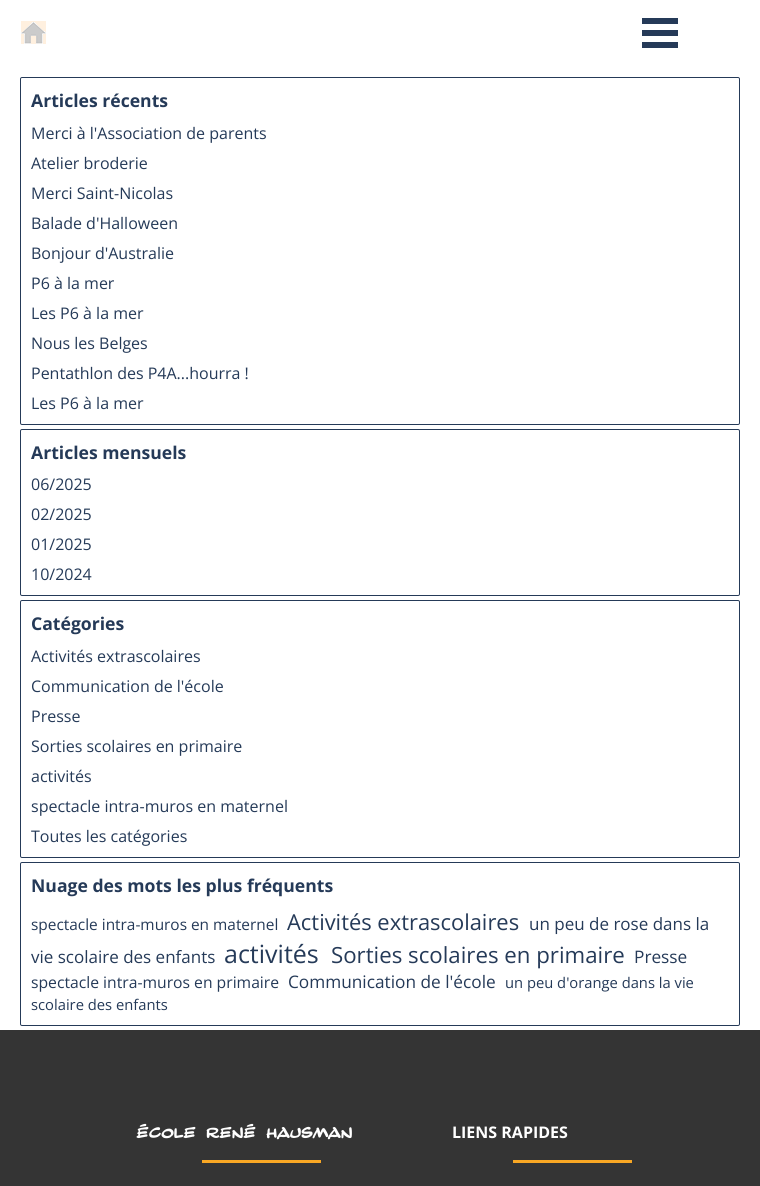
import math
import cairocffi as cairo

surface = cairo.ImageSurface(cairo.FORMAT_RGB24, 760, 1186)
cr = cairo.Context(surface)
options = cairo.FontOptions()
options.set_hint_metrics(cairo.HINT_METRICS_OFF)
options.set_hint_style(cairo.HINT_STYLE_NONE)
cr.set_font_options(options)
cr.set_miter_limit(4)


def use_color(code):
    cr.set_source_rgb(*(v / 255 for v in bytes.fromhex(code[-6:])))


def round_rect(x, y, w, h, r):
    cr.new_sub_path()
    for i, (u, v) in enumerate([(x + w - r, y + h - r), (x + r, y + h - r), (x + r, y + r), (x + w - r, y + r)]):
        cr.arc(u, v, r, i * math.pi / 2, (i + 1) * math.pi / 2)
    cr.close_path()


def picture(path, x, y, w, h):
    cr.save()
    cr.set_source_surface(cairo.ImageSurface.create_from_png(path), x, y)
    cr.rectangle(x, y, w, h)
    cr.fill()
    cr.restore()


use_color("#ffffff")
cr.paint()
picture("img1.png", 21, 21, 25, 23)
use_color("#253a58")
cr.rectangle(642, 18, 36, 6)
cr.fill()
cr.rectangle(642, 30, 36, 6)
cr.fill()
cr.rectangle(642, 42, 36, 6)
cr.fill()
round_rect(20.5, 77.5, 719, 347, 1.5)
cr.set_line_width(1)
cr.stroke()
cr.select_font_face("Open Sans", cairo.FONT_SLANT_NORMAL, cairo.FONT_WEIGHT_BOLD)
cr.set_font_size(17.6)
cr.move_to(31, 107)
cr.show_text("Articles récents")
cr.select_font_face("Open Sans")
cr.set_font_size(16)
cr.move_to(31, 139)
cr.show_text("Merci à l'Association de parents")
cr.move_to(31, 169)
cr.show_text("Atelier broderie")
cr.move_to(31, 199)
cr.show_text("Merci Saint-Nicolas")
cr.move_to(31, 229)
cr.show_text("Balade d'Halloween")
cr.move_to(31, 259)
cr.show_text("Bonjour d'Australie")
cr.move_to(31, 289)
cr.show_text("P6 à la mer")
cr.move_to(31, 319)
cr.show_text("Les P6 à la mer")
cr.move_to(31, 349)
cr.show_text("Nous les Belges")
cr.move_to(31, 379)
cr.show_text("Pentathlon des P4A...hourra !")
cr.move_to(31, 409)
cr.show_text("Les P6 à la mer")
round_rect(20.5, 429.5, 719, 166, 1.5)
cr.stroke()
cr.select_font_face("Open Sans", cairo.FONT_SLANT_NORMAL, cairo.FONT_WEIGHT_BOLD)
cr.set_font_size(17.6)
cr.move_to(31, 459)
cr.show_text("Articles mensuels")
cr.select_font_face("Open Sans")
cr.set_font_size(16)
cr.move_to(31, 490)
cr.show_text("06/2025")
cr.move_to(31, 520)
cr.show_text("02/2025")
cr.move_to(31, 550)
cr.show_text("01/2025")
cr.move_to(31, 580)
cr.show_text("10/2024")
round_rect(20.5, 600.5, 719, 257, 1.5)
cr.stroke()
cr.select_font_face("Open Sans", cairo.FONT_SLANT_NORMAL, cairo.FONT_WEIGHT_BOLD)
cr.set_font_size(17.6)
cr.move_to(31, 630)
cr.show_text("Catégories")
cr.select_font_face("Open Sans")
cr.set_font_size(16)
cr.move_to(31, 662)
cr.show_text("Activités extrascolaires")
cr.move_to(31, 692)
cr.show_text("Communication de l'école")
cr.move_to(31, 722)
cr.show_text("Presse")
cr.move_to(31, 752)
cr.show_text("Sorties scolaires en primaire")
cr.move_to(31, 782)
cr.show_text("activités")
cr.move_to(31, 812)
cr.show_text("spectacle intra-muros en maternel")
cr.move_to(31, 842)
cr.show_text("Toutes les catégories")
round_rect(20.5, 862.5, 719, 163, 1.5)
cr.stroke()
cr.select_font_face("Open Sans", cairo.FONT_SLANT_NORMAL, cairo.FONT_WEIGHT_BOLD)
cr.set_font_size(17.6)
cr.move_to(31, 892)
cr.show_text("Nuage des mots les plus fréquents")
cr.select_font_face("Open Sans")
cr.set_font_size(15.4)
cr.move_to(31, 930)
cr.show_text("spectacle intra-muros en maternel")
cr.set_font_size(21.9)
cr.move_to(287, 930)
cr.show_text("Activités extrascolaires")
cr.set_font_size(17)
cr.move_to(529, 930)
cr.show_text("un peu de rose dans la")
cr.move_to(31, 963)
cr.show_text("vie scolaire des enfants")
cr.set_font_size(25)
cr.move_to(224, 963)
cr.show_text("activités")
cr.set_font_size(22.25)
cr.move_to(331, 963)
cr.show_text("Sorties scolaires en primaire")
cr.set_font_size(17.25)
cr.move_to(634, 963)
cr.show_text("Presse")
cr.set_font_size(15.7)
cr.move_to(31, 988)
cr.show_text("spectacle intra-muros en primaire")
cr.set_font_size(17.25)
cr.move_to(288, 988)
cr.show_text("Communication de l'école")
cr.set_font_size(14.75)
cr.move_to(505, 988)
cr.show_text("un peu d'orange dans la vie")
cr.move_to(31, 1010)
cr.show_text("scolaire des enfants")
use_color("#343434")
cr.rectangle(0, 1030, 760, 156)
cr.fill()
cr.select_font_face("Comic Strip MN", cairo.FONT_SLANT_NORMAL, cairo.FONT_WEIGHT_BOLD)
cr.set_font_size(16)
use_color("#ffffff")
cr.move_to(136, 1138)
cr.show_text("ÉCOLE RENÉ HAUSMAN")
cr.select_font_face("Open Sans", cairo.FONT_SLANT_NORMAL, cairo.FONT_WEIGHT_BOLD)
cr.move_to(452, 1138)
cr.show_text("LIENS RAPIDES")
use_color("#f8a724")
cr.rectangle(202, 1160, 119, 3)
cr.fill()
cr.rectangle(513, 1160, 119, 3)
cr.fill()
surface.write_to_png("result.png")
